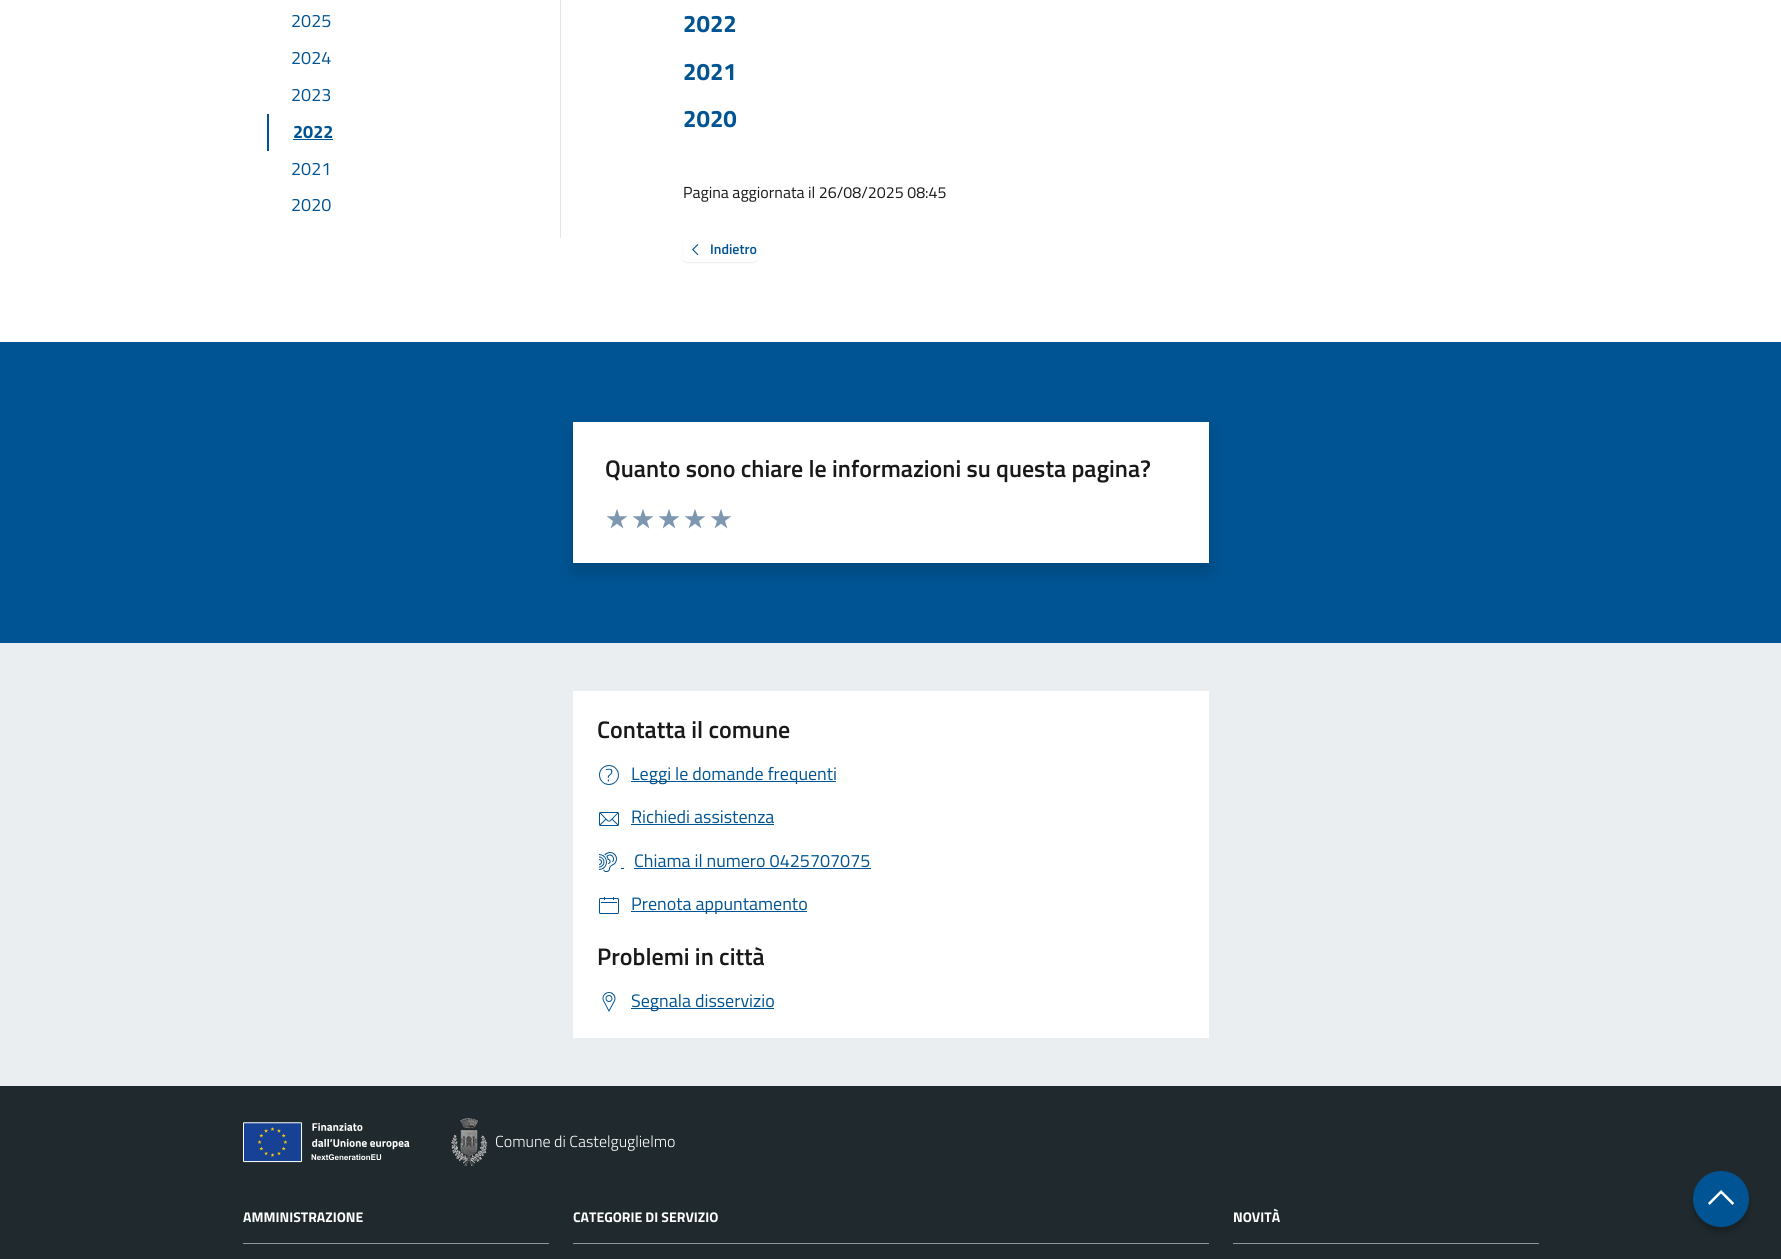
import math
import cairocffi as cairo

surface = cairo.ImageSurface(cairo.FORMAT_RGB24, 1781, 1259)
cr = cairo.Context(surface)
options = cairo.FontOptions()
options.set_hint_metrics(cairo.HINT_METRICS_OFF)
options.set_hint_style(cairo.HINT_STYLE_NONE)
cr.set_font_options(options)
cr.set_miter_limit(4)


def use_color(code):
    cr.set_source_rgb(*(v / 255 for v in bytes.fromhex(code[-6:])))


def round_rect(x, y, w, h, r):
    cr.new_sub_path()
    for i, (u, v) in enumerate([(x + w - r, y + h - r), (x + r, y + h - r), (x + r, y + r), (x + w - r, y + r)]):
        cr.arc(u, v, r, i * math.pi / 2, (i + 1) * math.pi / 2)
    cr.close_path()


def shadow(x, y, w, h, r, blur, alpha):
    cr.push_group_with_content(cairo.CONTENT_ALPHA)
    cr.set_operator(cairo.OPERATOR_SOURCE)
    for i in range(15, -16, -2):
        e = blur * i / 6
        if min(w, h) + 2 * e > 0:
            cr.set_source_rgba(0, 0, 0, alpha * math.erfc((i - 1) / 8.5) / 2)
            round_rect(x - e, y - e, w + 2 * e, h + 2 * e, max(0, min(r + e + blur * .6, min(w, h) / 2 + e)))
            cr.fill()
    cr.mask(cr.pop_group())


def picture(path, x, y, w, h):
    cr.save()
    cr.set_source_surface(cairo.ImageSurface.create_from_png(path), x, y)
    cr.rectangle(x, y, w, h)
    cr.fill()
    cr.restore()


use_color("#ffffff")
cr.paint()
use_color("#e5e5e5")
cr.rectangle(560, 0, 1, 238)
cr.fill()
cr.select_font_face("Titillium Web")
cr.set_font_size(18)
use_color("#005493")
cr.move_to(291, 27)
cr.show_text("2025")
cr.move_to(291, 64)
cr.show_text("2024")
cr.move_to(291, 101)
cr.show_text("2023")
cr.rectangle(267, 114, 2, 37)
cr.fill()
cr.select_font_face("Titillium Web", cairo.FONT_SLANT_NORMAL, cairo.FONT_WEIGHT_BOLD)
cr.move_to(293, 138)
cr.show_text("2022")
cr.rectangle(293, 139, 40, 1)
cr.fill()
cr.select_font_face("Titillium Web")
cr.move_to(291, 175)
cr.show_text("2021")
cr.move_to(291, 211)
cr.show_text("2020")
cr.select_font_face("Titillium Web", cairo.FONT_SLANT_NORMAL, cairo.FONT_WEIGHT_BOLD)
cr.set_font_size(24)
cr.move_to(683, 32)
cr.show_text("2022")
cr.move_to(683, 80)
cr.show_text("2021")
cr.move_to(683, 127)
cr.show_text("2020")
cr.select_font_face("Titillium Web")
cr.set_font_size(16)
use_color("#191919")
cr.move_to(683, 198)
cr.show_text("Pagina aggiornata il 26/08/2025 08:45")
cr.save()
cr.set_fill_rule(cairo.FILL_RULE_EVEN_ODD)
cr.new_path()
cr.move_to(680, 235)
cr.line_to(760, 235)
cr.line_to(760, 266)
cr.line_to(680, 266)
cr.close_path()
cr.move_to(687, 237)
cr.line_to(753, 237)
cr.curve_to(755, 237, 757, 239, 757, 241)
cr.line_to(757, 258)
cr.curve_to(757, 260, 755, 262, 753, 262)
cr.line_to(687, 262)
cr.curve_to(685, 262, 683, 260, 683, 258)
cr.line_to(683, 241)
cr.curve_to(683, 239, 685, 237, 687, 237)
cr.close_path()
cr.clip()
use_color("#000000")
shadow(683, 238, 74, 25, 4, 0.5, 0.07)
cr.restore()
picture("img1.png", 692, 244, 7, 12)
cr.select_font_face("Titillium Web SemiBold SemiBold")
cr.set_font_size(14)
use_color("#005493")
cr.move_to(710, 254)
cr.show_text("Indietro")
cr.rectangle(0, 342, 1781, 301)
cr.fill()
use_color("#000000")
shadow(573, 431, 636, 141, 0, 9, 0.15)
use_color("#ffffff")
cr.rectangle(573, 422, 636, 141)
cr.fill()
cr.set_font_size(24)
use_color("#191919")
cr.move_to(605, 477)
cr.show_text("Quanto sono chiare le informazioni su questa pagina?")
picture("img2.png", 606, 509, 22, 20)
picture("img2.png", 632, 509, 22, 20)
picture("img2.png", 658, 509, 22, 20)
picture("img2.png", 684, 509, 22, 20)
picture("img2.png", 710, 509, 22, 20)
use_color("#ebeef0")
cr.rectangle(0, 643, 1781, 443)
cr.fill()
use_color("#ffffff")
cr.rectangle(573, 691, 636, 347)
cr.fill()
use_color("#191919")
cr.move_to(597, 738)
cr.show_text("Contatta il comune")
picture("img3.png", 599, 765, 20, 20)
use_color("#005493")
cr.rectangle(631, 781, 205, 1)
cr.fill()
cr.select_font_face("Titillium Web")
cr.set_font_size(18)
cr.move_to(631, 780)
cr.show_text("Leggi le domande frequenti")
picture("img4.png", 599, 812, 20, 14)
cr.move_to(631, 823)
cr.show_text("Richiedi assistenza")
cr.rectangle(631, 824, 143, 1)
cr.fill()
picture("img5.png", 599, 852, 18, 20)
cr.move_to(634, 867)
cr.show_text("Chiama il numero 0425707075")
cr.rectangle(634, 868, 237, 1)
cr.fill()
cr.rectangle(621, 868, 3, 1)
cr.fill()
picture("img6.png", 599, 897, 20, 17)
cr.rectangle(631, 911, 176, 1)
cr.fill()
cr.move_to(631, 910)
cr.show_text("Prenota appuntamento")
cr.select_font_face("Titillium Web SemiBold SemiBold")
cr.set_font_size(24)
use_color("#191919")
cr.move_to(597, 965)
cr.show_text("Problemi in città")
picture("img7.png", 602, 992, 14, 20)
use_color("#005493")
cr.rectangle(631, 1008, 143, 1)
cr.fill()
cr.select_font_face("Titillium Web")
cr.set_font_size(18)
cr.move_to(631, 1007)
cr.show_text("Segnala disservizio")
use_color("#202a2e")
cr.rectangle(0, 1086, 1781, 173)
cr.fill()
picture("img8.png", 243, 1122, 167, 41)
picture("img9.png", 451, 1118, 36, 48)
cr.select_font_face("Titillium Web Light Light")
cr.set_font_size(16)
use_color("#ffffff")
cr.move_to(495, 1147)
cr.show_text("Comune di Castelguglielmo")
use_color("#909597")
cr.rectangle(243, 1243, 306, 1)
cr.fill()
cr.select_font_face("Titillium Web", cairo.FONT_SLANT_NORMAL, cairo.FONT_WEIGHT_BOLD)
cr.set_font_size(14)
use_color("#ffffff")
cr.move_to(243, 1222)
cr.show_text("AMMINISTRAZIONE")
use_color("#909597")
cr.rectangle(573, 1243, 636, 1)
cr.fill()
use_color("#ffffff")
cr.move_to(573, 1222)
cr.show_text("CATEGORIE DI SERVIZIO")
use_color("#909597")
cr.rectangle(1233, 1243, 306, 1)
cr.fill()
use_color("#ffffff")
cr.move_to(1233, 1222)
cr.show_text("NOVITÀ")
use_color("#000000")
shadow(1693, 1177, 56, 56, 28, 3, 0.23)
use_color("#005493")
cr.arc(1721, 1199, 28, 0, 2 * math.pi)
cr.fill()
picture("img10.png", 1708, 1190, 26, 15)
surface.write_to_png("result.png")
